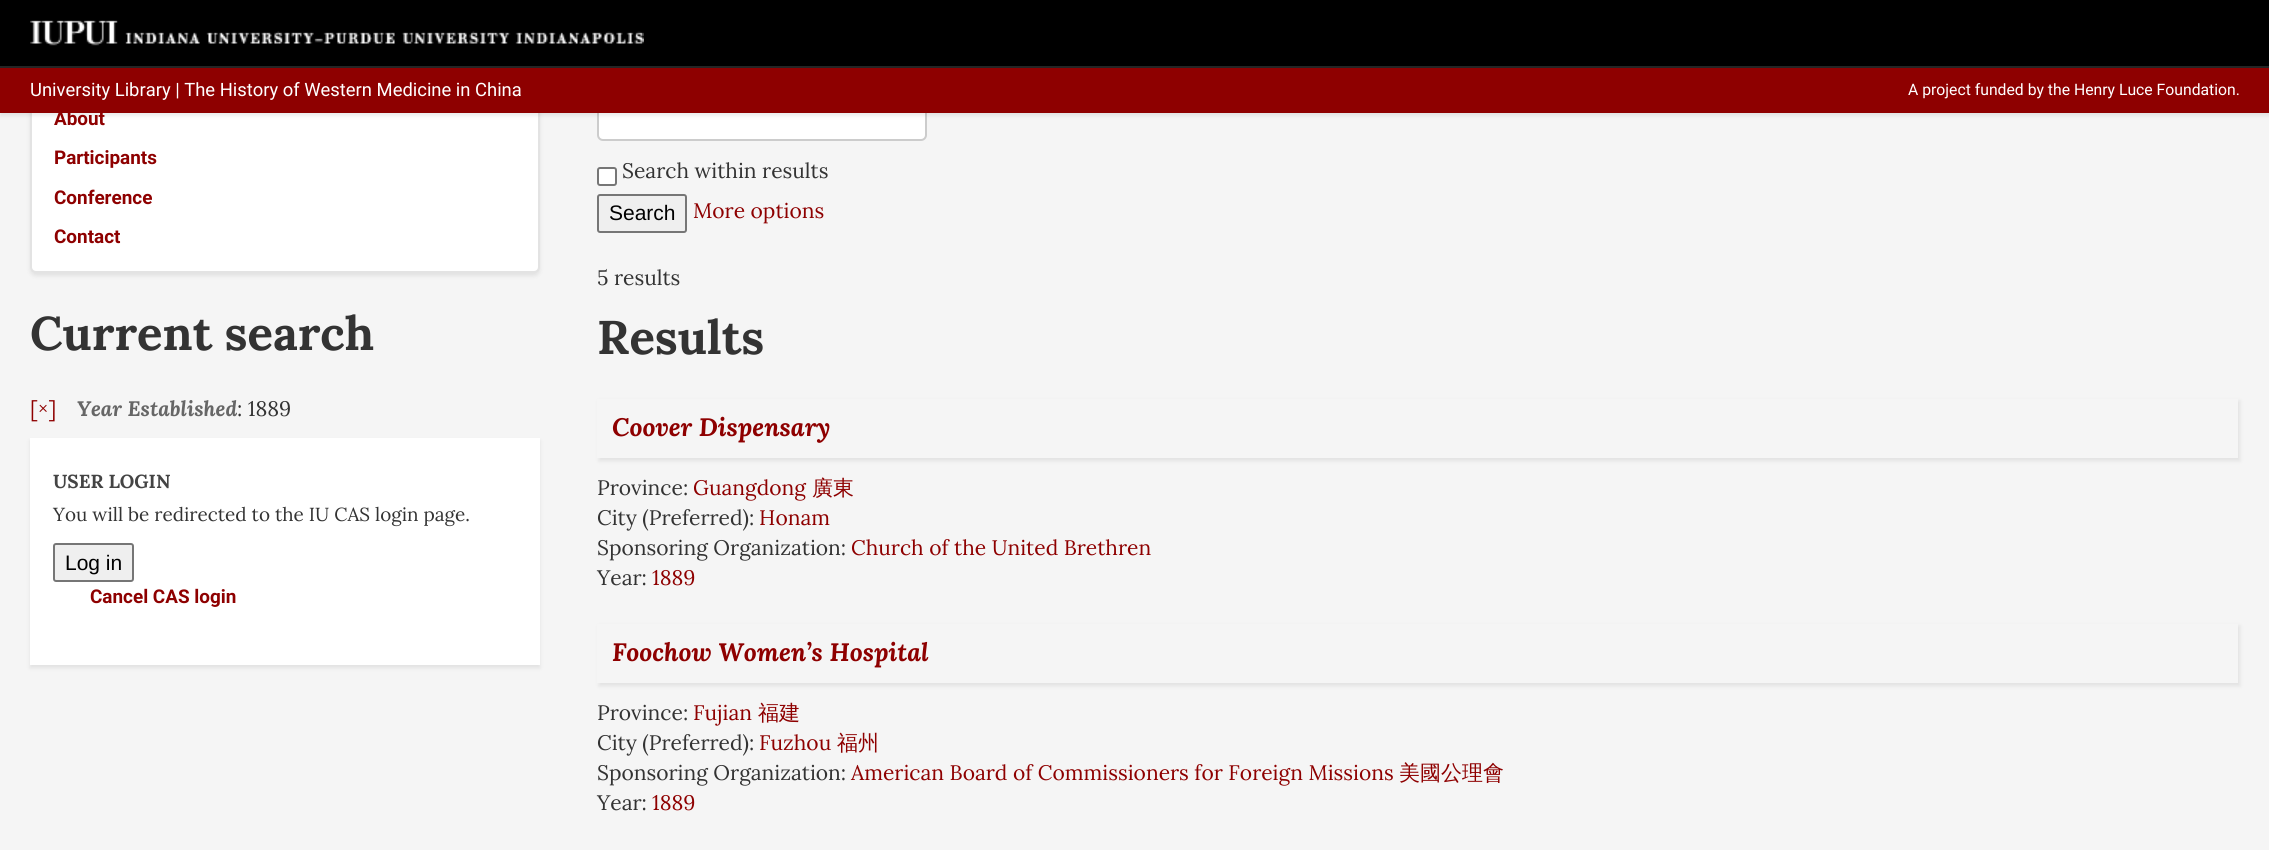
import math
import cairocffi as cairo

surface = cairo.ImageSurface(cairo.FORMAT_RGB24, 2269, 850)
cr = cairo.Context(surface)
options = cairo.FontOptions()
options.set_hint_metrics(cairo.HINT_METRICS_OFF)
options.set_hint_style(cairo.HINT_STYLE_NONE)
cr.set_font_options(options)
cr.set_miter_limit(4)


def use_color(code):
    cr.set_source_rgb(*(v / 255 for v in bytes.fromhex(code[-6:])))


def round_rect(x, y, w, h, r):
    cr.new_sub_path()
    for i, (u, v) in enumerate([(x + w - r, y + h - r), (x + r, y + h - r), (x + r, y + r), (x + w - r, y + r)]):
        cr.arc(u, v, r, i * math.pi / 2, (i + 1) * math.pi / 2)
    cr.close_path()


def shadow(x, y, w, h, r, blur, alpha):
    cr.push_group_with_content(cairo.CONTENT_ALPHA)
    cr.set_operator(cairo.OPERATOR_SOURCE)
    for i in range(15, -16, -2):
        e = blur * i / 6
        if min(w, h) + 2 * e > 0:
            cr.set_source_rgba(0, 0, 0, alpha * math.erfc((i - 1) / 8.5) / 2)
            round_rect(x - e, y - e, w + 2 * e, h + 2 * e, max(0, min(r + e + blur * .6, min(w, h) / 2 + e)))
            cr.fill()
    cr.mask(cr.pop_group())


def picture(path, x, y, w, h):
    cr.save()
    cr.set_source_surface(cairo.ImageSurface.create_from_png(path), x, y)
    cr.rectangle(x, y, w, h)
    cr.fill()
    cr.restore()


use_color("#f5f5f5")
cr.paint()
use_color("#323232")
shadow(30, -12, 510, 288, 6, 2, 0.1)
use_color("#ffffff")
round_rect(31, -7, 508, 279, 5)
cr.fill_preserve()
use_color("#e3e3e3")
cr.stroke()
use_color("#252525")
cr.rectangle(0, 66, 2269, 2)
cr.fill()
use_color("#000000")
cr.rectangle(0, 0, 2269, 66)
cr.fill()
picture("img1.png", 30, 20, 614, 26)
use_color("#ffffff")
round_rect(598, 97, 328, 43, 5)
cr.fill_preserve()
use_color("#cccccc")
cr.stroke()
use_color("#323232")
shadow(0, 71, 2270, 45, 0, 2, 0.1)
use_color("#8e0000")
cr.rectangle(0, 68, 2269, 45)
cr.fill()
cr.select_font_face("Roboto")
cr.set_font_size(18.4)
use_color("#ffffff")
cr.move_to(30, 96)
cr.show_text("University Library | The History of Western Medicine in China")
cr.set_font_size(15.75)
cr.move_to(1908, 95)
cr.show_text("A project funded by the Henry Luce Foundation.")
cr.select_font_face("Roboto", cairo.FONT_SLANT_NORMAL, cairo.FONT_WEIGHT_BOLD)
cr.set_font_size(18.9)
use_color("#8e0000")
cr.move_to(54, 125)
cr.show_text("About")
cr.move_to(54, 164)
cr.show_text("Participants")
cr.move_to(54, 204)
cr.show_text("Conference")
cr.move_to(54, 243)
cr.show_text("Contact")
cr.select_font_face("Lora", cairo.FONT_SLANT_NORMAL, cairo.FONT_WEIGHT_BOLD)
cr.set_font_size(47.25)
use_color("#333333")
cr.move_to(30, 350)
cr.show_text("Current search")
cr.select_font_face("Lora")
cr.set_font_size(21)
use_color("#8e0000")
cr.move_to(30, 416)
cr.show_text("[×]")
cr.select_font_face("Lora", cairo.FONT_SLANT_ITALIC, cairo.FONT_WEIGHT_BOLD)
use_color("#666666")
cr.move_to(77, 416)
cr.show_text("Year Established")
cr.select_font_face("Lora")
use_color("#333333")
cr.move_to(237, 416)
cr.show_text(": 1889")
use_color("#323232")
shadow(30, 441, 510, 227, 0, 2, 0.1)
use_color("#ffffff")
cr.rectangle(30, 438, 510, 227)
cr.fill()
cr.select_font_face("Lora", cairo.FONT_SLANT_NORMAL, cairo.FONT_WEIGHT_BOLD)
cr.set_font_size(18.9)
use_color("#444444")
cr.move_to(53, 488)
cr.show_text("USER LOGIN")
cr.select_font_face("Lora")
use_color("#333333")
cr.move_to(53, 521)
cr.show_text("You will be redirected to the IU CAS login page.")
use_color("#efefef")
round_rect(54, 544, 79, 37, 2)
cr.fill_preserve()
use_color("#767676")
cr.stroke()
cr.select_font_face("Liberation Sans")
cr.set_font_size(21)
use_color("#000000")
cr.move_to(65, 570)
cr.show_text("Log in")
cr.select_font_face("Roboto", cairo.FONT_SLANT_NORMAL, cairo.FONT_WEIGHT_BOLD)
cr.set_font_size(18.9)
use_color("#8e0000")
cr.move_to(90, 603)
cr.show_text("Cancel CAS login")
use_color("#ffffff")
round_rect(598, 168, 18, 17, 2)
cr.fill_preserve()
use_color("#767676")
cr.stroke()
cr.select_font_face("Lora")
cr.set_font_size(21)
use_color("#333333")
cr.move_to(622, 178)
cr.show_text("Search within results")
use_color("#efefef")
round_rect(598, 195, 88, 37, 2)
cr.fill_preserve()
use_color("#767676")
cr.stroke()
cr.select_font_face("Liberation Sans")
use_color("#000000")
cr.move_to(609, 220)
cr.show_text("Search")
cr.select_font_face("Lora")
use_color("#8e0000")
cr.move_to(693, 218)
cr.show_text("More options")
use_color("#333333")
cr.move_to(597, 285)
cr.show_text("5 results")
cr.select_font_face("Lora", cairo.FONT_SLANT_NORMAL, cairo.FONT_WEIGHT_BOLD)
cr.set_font_size(47.25)
cr.move_to(597, 354)
cr.show_text("Results")
use_color("#323232")
shadow(599, 401, 1641, 60, 0, 2, 0.1)
use_color("#f5f5f5")
cr.rectangle(597, 399, 1641, 59)
cr.fill()
cr.select_font_face("Lora", cairo.FONT_SLANT_ITALIC, cairo.FONT_WEIGHT_BOLD)
cr.set_font_size(25.25)
use_color("#8e0000")
cr.move_to(612, 436)
cr.show_text("Coover Dispensary")
cr.select_font_face("Lora")
cr.set_font_size(21)
use_color("#333333")
cr.move_to(597, 495)
cr.show_text("Province:")
use_color("#8e0000")
cr.move_to(693, 495)
cr.show_text("Guangdong")
cr.select_font_face("WenQuanYi Zen Hei Medium")
cr.move_to(812, 495)
cr.show_text("廣東")
cr.select_font_face("Lora")
use_color("#333333")
cr.move_to(597, 525)
cr.show_text("City (Preferred):")
use_color("#8e0000")
cr.move_to(759, 525)
cr.show_text("Honam")
use_color("#333333")
cr.move_to(597, 555)
cr.show_text("Sponsoring Organization:")
use_color("#8e0000")
cr.move_to(851, 555)
cr.show_text("Church of the United Brethren")
use_color("#333333")
cr.move_to(597, 585)
cr.show_text("Year:")
use_color("#8e0000")
cr.move_to(652, 585)
cr.show_text("1889")
use_color("#323232")
shadow(599, 626, 1641, 60, 0, 2, 0.1)
use_color("#f5f5f5")
cr.rectangle(597, 624, 1641, 59)
cr.fill()
cr.select_font_face("Lora", cairo.FONT_SLANT_ITALIC, cairo.FONT_WEIGHT_BOLD)
cr.set_font_size(25.25)
use_color("#8e0000")
cr.move_to(612, 661)
cr.show_text("Foochow Women’s Hospital")
cr.select_font_face("Lora")
cr.set_font_size(21)
use_color("#333333")
cr.move_to(597, 720)
cr.show_text("Province:")
use_color("#8e0000")
cr.move_to(693, 720)
cr.show_text("Fujian")
cr.select_font_face("WenQuanYi Zen Hei Medium")
cr.move_to(758, 720)
cr.show_text("福建")
cr.select_font_face("Lora")
use_color("#333333")
cr.move_to(597, 750)
cr.show_text("City (Preferred):")
use_color("#8e0000")
cr.move_to(759, 750)
cr.show_text("Fuzhou")
cr.select_font_face("WenQuanYi Zen Hei Medium")
cr.move_to(837, 750)
cr.show_text("福州")
cr.select_font_face("Lora")
use_color("#333333")
cr.move_to(597, 780)
cr.show_text("Sponsoring Organization:")
use_color("#8e0000")
cr.move_to(851, 780)
cr.show_text("American Board of Commissioners for Foreign Missions")
cr.select_font_face("WenQuanYi Zen Hei Medium")
cr.move_to(1399, 780)
cr.show_text("美國公理會")
cr.select_font_face("Lora")
use_color("#333333")
cr.move_to(597, 810)
cr.show_text("Year:")
use_color("#8e0000")
cr.move_to(652, 810)
cr.show_text("1889")
surface.write_to_png("result.png")
